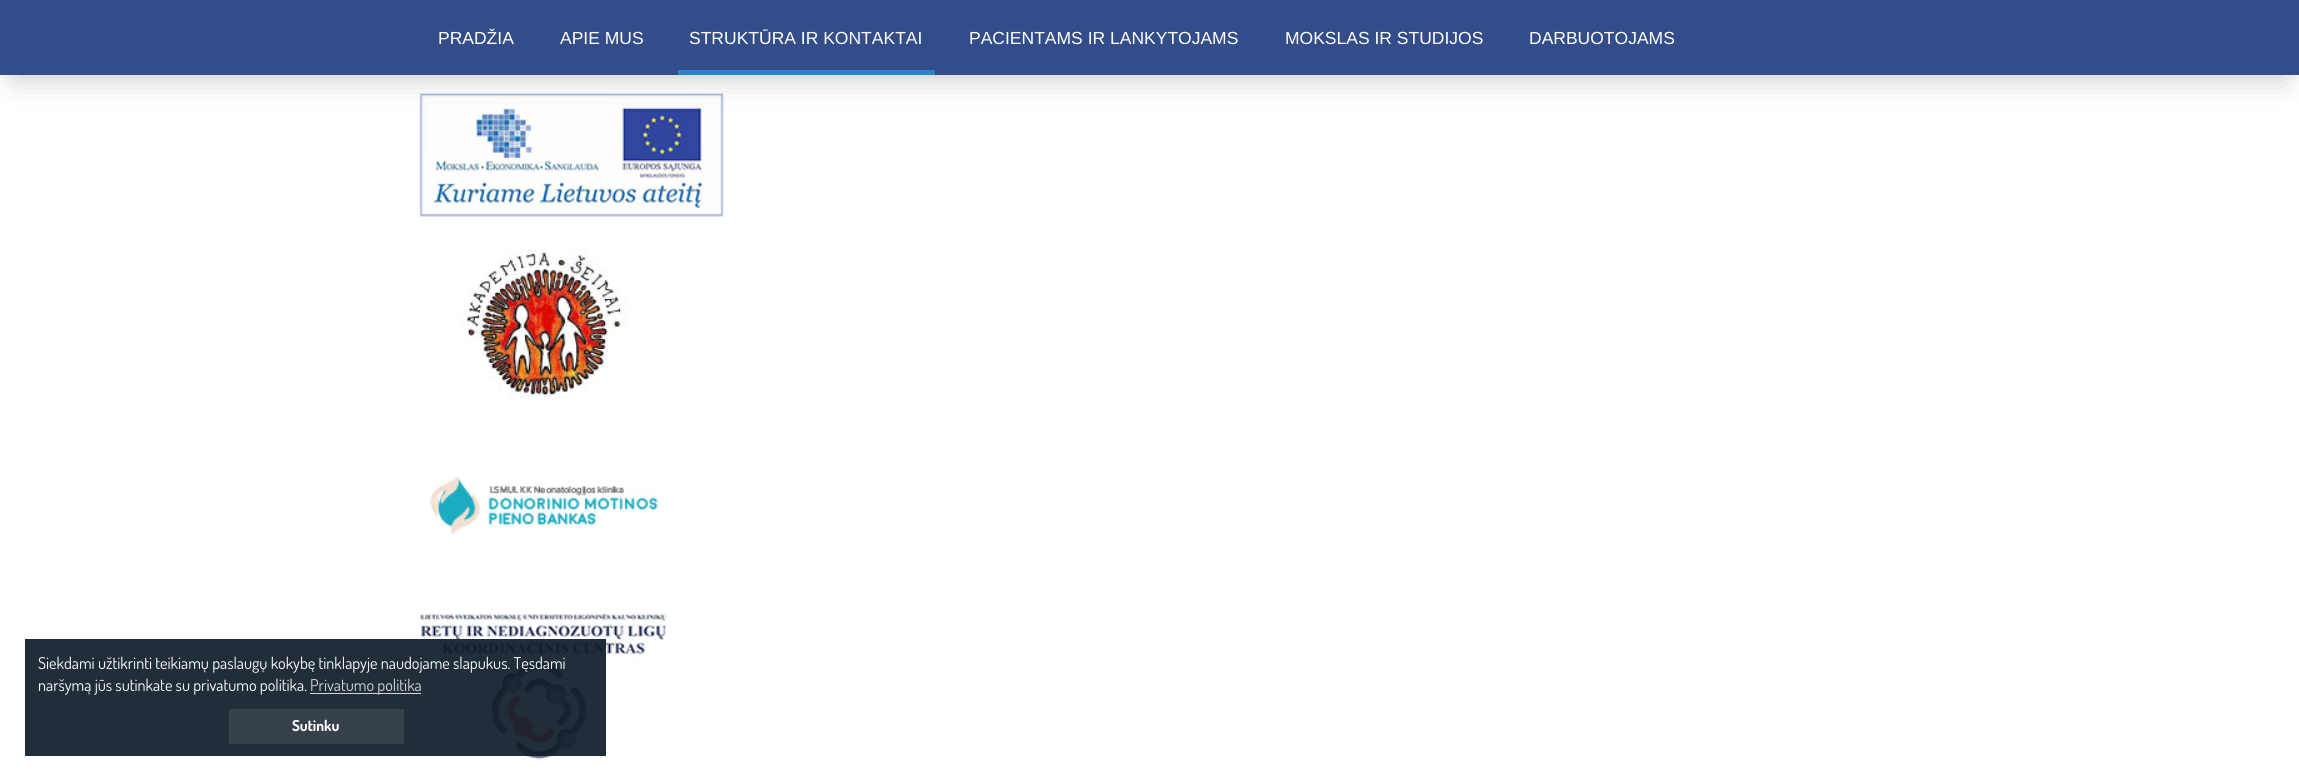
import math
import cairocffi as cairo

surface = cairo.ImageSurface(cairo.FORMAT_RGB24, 2299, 781)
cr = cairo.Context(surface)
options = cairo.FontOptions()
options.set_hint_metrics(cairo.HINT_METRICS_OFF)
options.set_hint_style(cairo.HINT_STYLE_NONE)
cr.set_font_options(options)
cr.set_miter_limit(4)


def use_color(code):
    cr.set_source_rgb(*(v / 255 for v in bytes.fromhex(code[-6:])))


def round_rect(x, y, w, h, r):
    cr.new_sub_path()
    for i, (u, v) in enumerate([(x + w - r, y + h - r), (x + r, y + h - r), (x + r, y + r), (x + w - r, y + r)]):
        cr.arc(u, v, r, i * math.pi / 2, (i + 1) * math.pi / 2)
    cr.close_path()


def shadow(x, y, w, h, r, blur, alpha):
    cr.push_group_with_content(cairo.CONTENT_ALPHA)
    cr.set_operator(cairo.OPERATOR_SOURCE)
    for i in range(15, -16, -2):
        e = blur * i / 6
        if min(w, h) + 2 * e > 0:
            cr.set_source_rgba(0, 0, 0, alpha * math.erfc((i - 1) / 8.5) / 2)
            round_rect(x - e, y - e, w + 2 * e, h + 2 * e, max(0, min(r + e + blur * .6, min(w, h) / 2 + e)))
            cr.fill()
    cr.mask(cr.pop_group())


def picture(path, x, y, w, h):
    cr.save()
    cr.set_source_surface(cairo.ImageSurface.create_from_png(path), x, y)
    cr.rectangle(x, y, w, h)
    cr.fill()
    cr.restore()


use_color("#ffffff")
cr.paint()
picture("img1.png", 419, 93, 305, 125)
use_color("#000000")
shadow(15, 31, 2270, 45, 0, 15.5, 0.25)
use_color("#334c8a")
cr.rectangle(0, 0, 2299, 75)
cr.fill()
cr.select_font_face("Liberation Sans")
cr.set_font_size(17.5)
use_color("#ffffff")
cr.move_to(438, 44)
cr.show_text("PRADŽIA")
cr.move_to(560, 44)
cr.show_text("APIE MUS")
cr.move_to(689, 44)
cr.show_text("STRUKTŪRA IR KONTAKTAI")
use_color("#2786c4")
cr.rectangle(678, 70, 257, 5)
cr.fill()
use_color("#ffffff")
cr.move_to(969, 44)
cr.show_text("PACIENTAMS IR LANKYTOJAMS")
cr.move_to(1285, 44)
cr.show_text("MOKSLAS IR STUDIJOS")
cr.move_to(1529, 44)
cr.show_text("DARBUOTOJAMS")
picture("img2.png", 460, 249, 169, 150)
picture("img3.png", 430, 476, 228, 58)
picture("img4.png", 419, 613, 248, 147)
cr.set_source_rgba(0.071, 0.118, 0.165, 0.93)
cr.rectangle(25, 639, 581, 117)
cr.fill()
cr.select_font_face("Dosis")
cr.set_font_size(16.25)
use_color("#ffffff")
cr.move_to(38, 669)
cr.show_text("Siekdami užtikrinti teikiamų paslaugų kokybę tinklapyje naudojame slapukus. Tęsdami")
cr.move_to(38, 691)
cr.show_text("naršymą jūs sutinkate su privatumo politika.")
use_color("#d3d5d7")
cr.rectangle(310, 693, 111, 1)
cr.fill()
cr.move_to(310, 691)
cr.show_text("Privatumo politika")
use_color("#37414c")
cr.rectangle(229, 709, 175, 35)
cr.fill()
cr.select_font_face("Dosis", cairo.FONT_SLANT_NORMAL, cairo.FONT_WEIGHT_BOLD)
cr.set_font_size(15)
use_color("#ffffff")
cr.move_to(292, 731)
cr.show_text("Sutinku")
surface.write_to_png("result.png")
